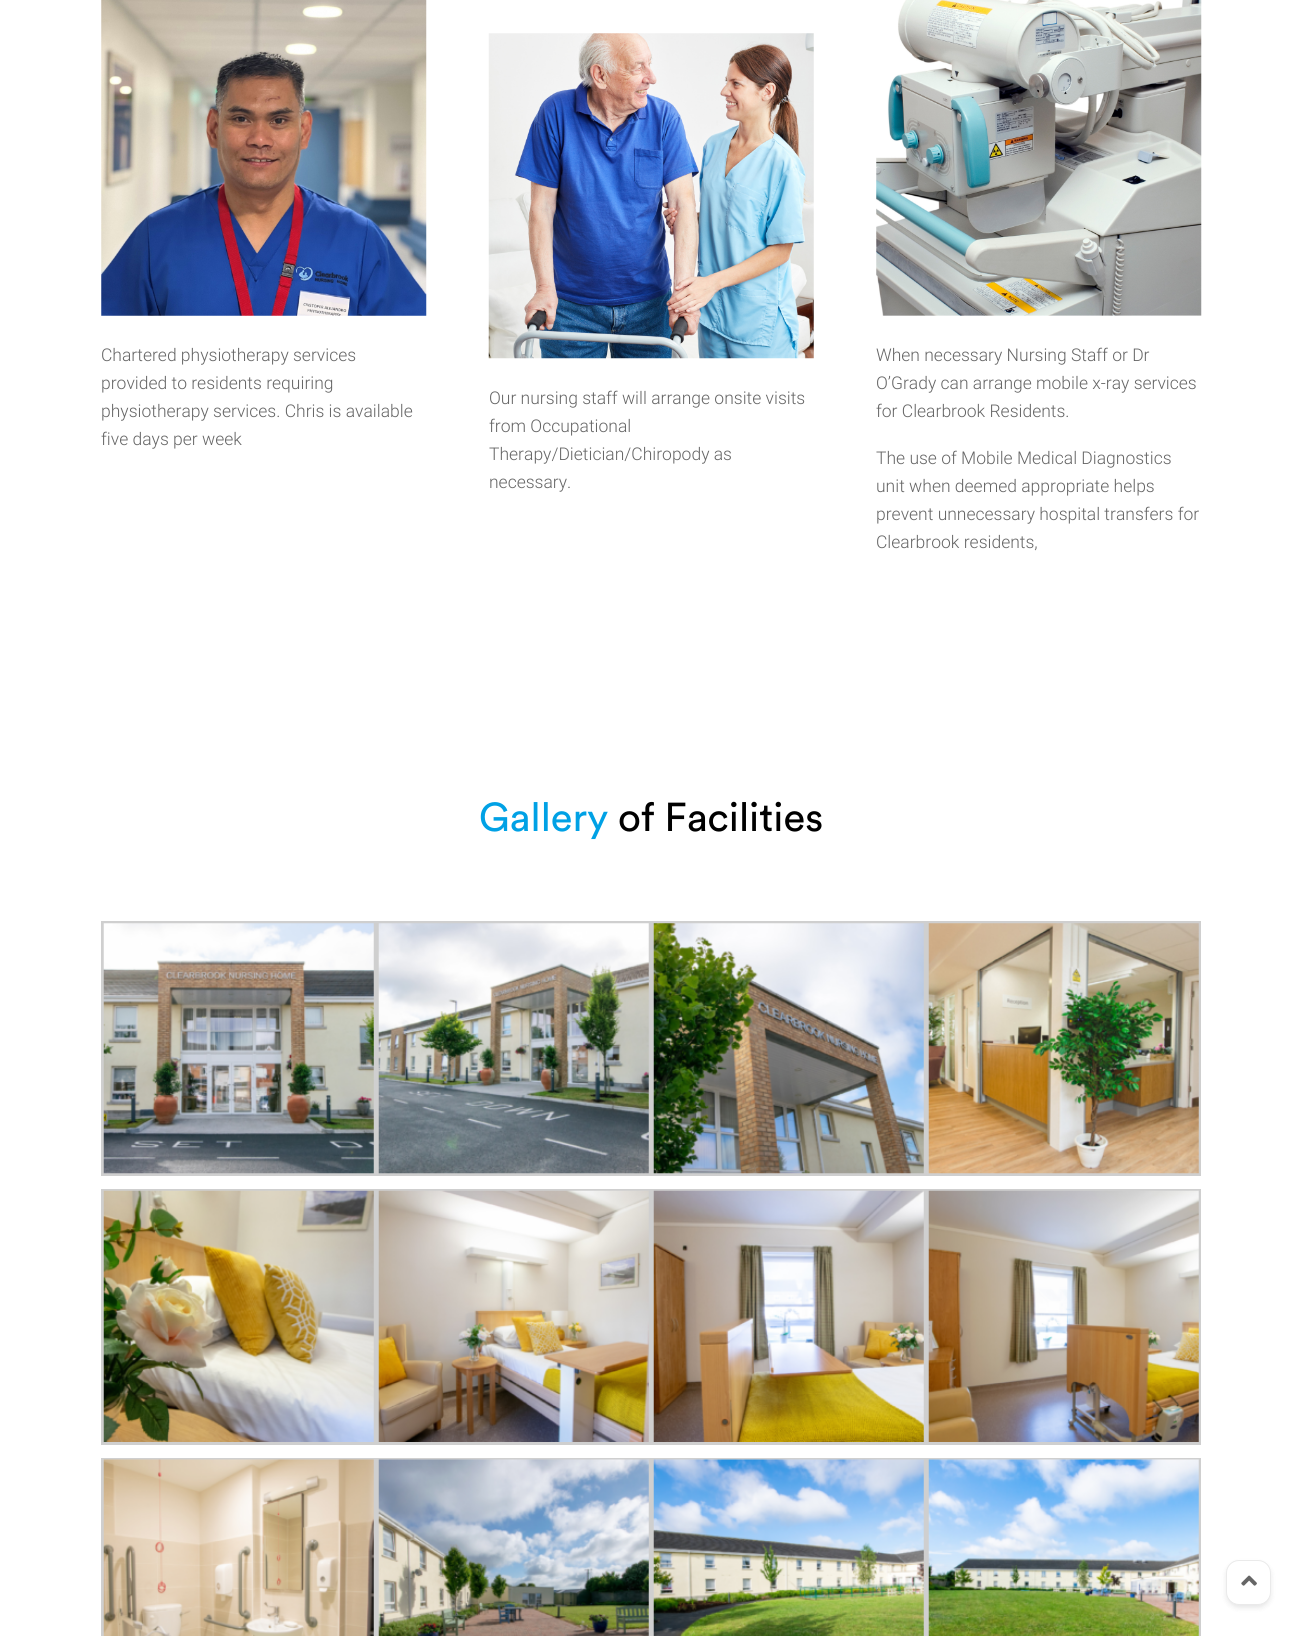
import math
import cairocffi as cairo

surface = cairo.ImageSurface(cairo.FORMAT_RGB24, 1302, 1636)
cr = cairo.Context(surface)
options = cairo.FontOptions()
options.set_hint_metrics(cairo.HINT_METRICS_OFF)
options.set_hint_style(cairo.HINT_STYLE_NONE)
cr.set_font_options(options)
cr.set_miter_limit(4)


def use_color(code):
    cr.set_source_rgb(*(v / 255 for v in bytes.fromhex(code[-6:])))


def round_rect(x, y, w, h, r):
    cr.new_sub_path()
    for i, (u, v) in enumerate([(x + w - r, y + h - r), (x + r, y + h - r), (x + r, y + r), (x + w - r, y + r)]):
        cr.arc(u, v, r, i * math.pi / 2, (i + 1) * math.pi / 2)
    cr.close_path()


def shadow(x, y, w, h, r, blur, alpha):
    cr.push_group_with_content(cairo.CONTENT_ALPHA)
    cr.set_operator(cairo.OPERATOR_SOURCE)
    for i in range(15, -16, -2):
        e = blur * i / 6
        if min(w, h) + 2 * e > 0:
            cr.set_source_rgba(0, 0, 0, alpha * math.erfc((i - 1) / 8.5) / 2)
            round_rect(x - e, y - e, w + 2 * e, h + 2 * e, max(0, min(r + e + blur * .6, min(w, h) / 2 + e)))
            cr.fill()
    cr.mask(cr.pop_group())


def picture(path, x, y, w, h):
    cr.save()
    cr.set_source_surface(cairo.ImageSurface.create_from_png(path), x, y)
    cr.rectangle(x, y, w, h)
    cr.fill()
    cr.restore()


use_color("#ffffff")
cr.paint()
picture("img1.png", 101, 0, 326, 316)
cr.select_font_face("Roboto Light")
cr.set_font_size(17.5)
use_color("#666666")
cr.move_to(101, 361)
cr.show_text("Chartered physiotherapy services")
cr.move_to(101, 389)
cr.show_text("provided to residents requiring")
cr.move_to(101, 417)
cr.show_text("physiotherapy services. Chris is available")
cr.move_to(101, 445)
cr.show_text("five days per week")
picture("img2.png", 488, 33, 326, 326)
cr.move_to(489, 404)
cr.show_text("Our nursing staff will arrange onsite visits")
cr.move_to(489, 432)
cr.show_text("from Occupational")
cr.move_to(489, 460)
cr.show_text("Therapy/Dietician/Chiropody as")
cr.move_to(489, 488)
cr.show_text("necessary.")
picture("img3.png", 876, 0, 326, 316)
cr.move_to(876, 361)
cr.show_text("When necessary Nursing Staff or Dr")
cr.move_to(876, 389)
cr.show_text("O’Grady can arrange mobile x-ray services")
cr.move_to(876, 417)
cr.show_text("for Clearbrook Residents.")
cr.move_to(876, 464)
cr.show_text("The use of Mobile Medical Diagnostics")
cr.move_to(876, 492)
cr.show_text("unit when deemed appropriate helps")
cr.move_to(876, 520)
cr.show_text("prevent unnecessary hospital transfers for")
cr.move_to(876, 548)
cr.show_text("Clearbrook residents,")
cr.select_font_face("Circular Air")
cr.set_font_size(40)
use_color("#00a1e5")
cr.move_to(479, 831)
cr.show_text("Gallery")
use_color("#000000")
cr.move_to(618, 831)
cr.show_text("of Facilities")
cr.rectangle(102.5, 922.5, 272, 252)
use_color("#cfcfcf")
cr.set_line_width(3)
cr.stroke()
picture("img4.png", 103, 923, 271, 251)
cr.rectangle(377.5, 922.5, 272, 252)
cr.stroke()
picture("img5.png", 378, 923, 271, 251)
cr.rectangle(652.5, 922.5, 272, 252)
cr.stroke()
picture("img6.png", 653, 923, 271, 251)
cr.rectangle(927.5, 922.5, 272, 252)
cr.stroke()
picture("img7.png", 928, 923, 271, 251)
cr.rectangle(102.5, 1190.5, 272, 253)
cr.stroke()
picture("img8.png", 103, 1190, 271, 252)
cr.rectangle(377.5, 1190.5, 272, 253)
cr.stroke()
picture("img9.png", 378, 1190, 271, 252)
cr.rectangle(652.5, 1190.5, 272, 253)
cr.stroke()
picture("img10.png", 653, 1190, 271, 252)
cr.rectangle(927.5, 1190.5, 272, 253)
cr.stroke()
picture("img11.png", 928, 1190, 271, 252)
cr.rectangle(102.5, 1459.5, 272, 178)
cr.stroke()
picture("img12.png", 103, 1459, 271, 177)
cr.rectangle(377.5, 1459.5, 272, 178)
cr.stroke()
picture("img13.png", 378, 1459, 271, 177)
cr.rectangle(652.5, 1459.5, 272, 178)
cr.stroke()
picture("img14.png", 653, 1459, 271, 177)
cr.rectangle(927.5, 1459.5, 272, 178)
cr.stroke()
picture("img15.png", 928, 1459, 271, 177)
use_color("#111112")
shadow(1226, 1563, 45, 45, 13, 2.5, 0.1)
use_color("#ffffff")
round_rect(1226.5, 1560.5, 44, 44, 12.5)
cr.fill_preserve()
use_color("#eaeaea")
cr.set_line_width(1)
cr.stroke()
picture("img16.png", 1241, 1575, 16, 11)
surface.write_to_png("result.png")
